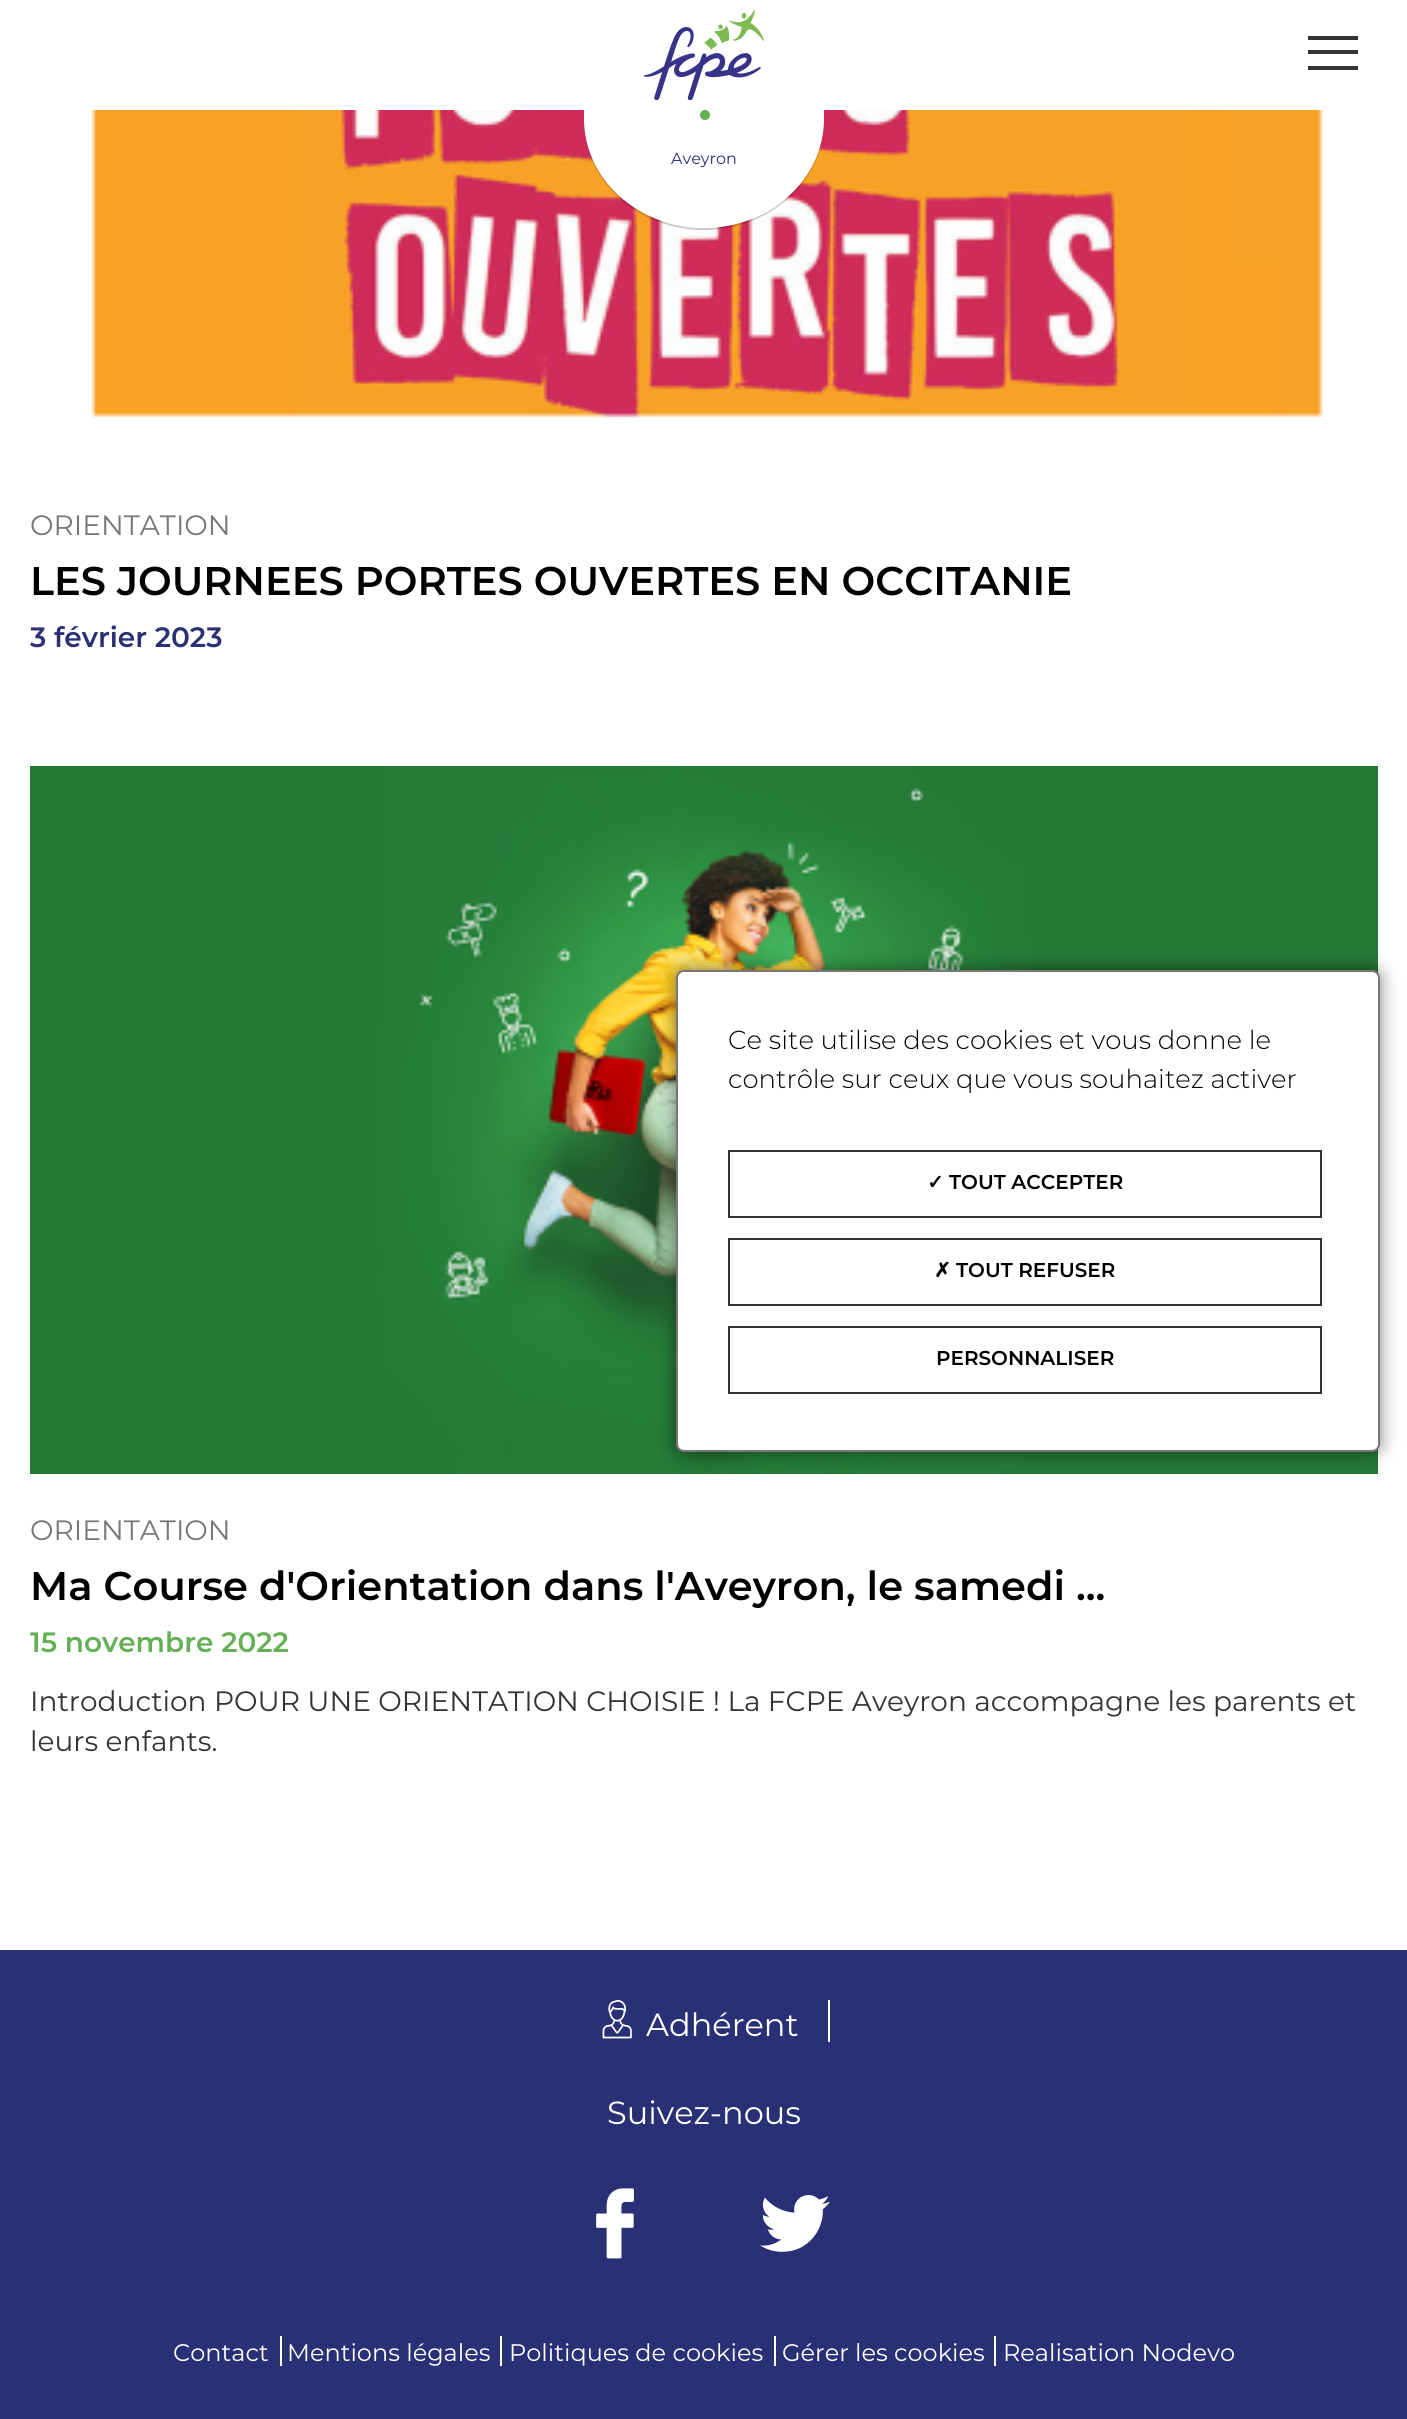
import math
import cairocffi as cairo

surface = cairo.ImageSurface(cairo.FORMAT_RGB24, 1407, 2419)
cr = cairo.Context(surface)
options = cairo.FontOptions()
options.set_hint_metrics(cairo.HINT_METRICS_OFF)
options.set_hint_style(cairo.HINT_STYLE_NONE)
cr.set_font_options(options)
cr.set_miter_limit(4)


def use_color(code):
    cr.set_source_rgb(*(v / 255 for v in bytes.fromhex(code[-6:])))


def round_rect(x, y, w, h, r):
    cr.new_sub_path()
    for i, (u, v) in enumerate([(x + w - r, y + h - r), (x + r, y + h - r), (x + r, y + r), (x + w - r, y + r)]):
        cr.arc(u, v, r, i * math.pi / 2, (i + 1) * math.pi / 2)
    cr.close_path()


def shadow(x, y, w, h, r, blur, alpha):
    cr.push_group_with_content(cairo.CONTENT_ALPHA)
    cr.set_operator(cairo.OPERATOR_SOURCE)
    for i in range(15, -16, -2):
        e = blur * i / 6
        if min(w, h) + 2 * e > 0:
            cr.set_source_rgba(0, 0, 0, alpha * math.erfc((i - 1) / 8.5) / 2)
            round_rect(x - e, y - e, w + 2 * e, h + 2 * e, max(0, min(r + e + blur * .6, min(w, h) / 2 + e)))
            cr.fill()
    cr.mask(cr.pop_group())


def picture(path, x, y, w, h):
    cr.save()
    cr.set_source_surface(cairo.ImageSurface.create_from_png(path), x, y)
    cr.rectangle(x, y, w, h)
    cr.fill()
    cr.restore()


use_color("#ffffff")
cr.paint()
use_color("#333333")
cr.rectangle(1308, 36, 50, 4)
cr.fill()
cr.rectangle(1308, 50, 50, 4)
cr.fill()
cr.rectangle(1308, 66, 50, 4)
cr.fill()
picture("img2.png", 91, 110, 1232, 308)
cr.set_source_rgba(0, 0, 0, 0.2)
cr.new_path()
cr.move_to(584, 119)
cr.line_to(584, 121)
cr.curve_to(584, 181, 638, 230, 704, 230)
cr.curve_to(770, 230, 824, 181, 824, 121)
cr.line_to(824, 119)
cr.curve_to(824, 179, 770, 228, 704, 228)
cr.curve_to(638, 228, 584, 179, 584, 119)
cr.close_path()
cr.fill()
use_color("#ffffff")
cr.new_path()
cr.move_to(584, 10)
cr.line_to(824, 10)
cr.line_to(824, 119)
cr.curve_to(824, 179, 770, 228, 704, 228)
cr.curve_to(638, 228, 584, 179, 584, 119)
cr.close_path()
cr.fill()
picture("img1.png", 644, 10, 120, 90)
use_color("#64b055")
cr.arc(705, 115, 5, 0, 2 * math.pi)
cr.fill()
cr.select_font_face("Montserrat")
cr.set_font_size(16)
use_color("#293075")
cr.move_to(671, 164)
cr.show_text("Aveyron")
cr.set_font_size(28)
use_color("#777777")
cr.move_to(30, 535)
cr.show_text("ORIENTATION")
cr.select_font_face("Montserrat SemiBold")
cr.set_font_size(40)
use_color("#000000")
cr.move_to(30, 595)
cr.show_text("LES JOURNEES PORTES OUVERTES EN OCCITANIE")
cr.set_font_size(28)
use_color("#293075")
cr.move_to(30, 647)
cr.show_text("3 février 2023")
picture("img3.png", 30, 766, 1348, 708)
cr.select_font_face("Montserrat")
use_color("#777777")
cr.move_to(30, 1540)
cr.show_text("ORIENTATION")
cr.select_font_face("Montserrat SemiBold")
cr.set_font_size(40)
use_color("#000000")
cr.move_to(30, 1600)
cr.show_text("Ma Course d'Orientation dans l'Aveyron, le samedi ...")
cr.set_font_size(28)
use_color("#64b055")
cr.move_to(30, 1652)
cr.show_text("15 novembre 2022")
cr.select_font_face("Montserrat")
use_color("#333333")
cr.move_to(30, 1711)
cr.show_text("Introduction POUR UNE ORIENTATION CHOISIE ! La FCPE Aveyron accompagne les parents et")
cr.move_to(30, 1751)
cr.show_text("leurs enfants.")
use_color("#293075")
cr.rectangle(0, 1950, 1407, 469)
cr.fill()
use_color("#ffffff")
cr.rectangle(828, 2000, 2, 42)
cr.fill()
picture("img4.png", 602, 2000, 30, 39)
cr.set_font_size(32)
cr.move_to(646, 2036)
cr.show_text("Adhérent")
cr.move_to(607, 2124)
cr.show_text("Suivez-nous")
picture("img5.png", 596, 2188, 38, 71)
picture("img6.png", 760, 2195, 70, 57)
cr.rectangle(280, 2336, 2, 30)
cr.fill()
cr.set_font_size(24)
cr.move_to(173, 2361)
cr.show_text("Contact")
cr.rectangle(500, 2336, 2, 30)
cr.fill()
cr.move_to(287, 2361)
cr.show_text("Mentions légales")
cr.rectangle(774, 2336, 2, 30)
cr.fill()
cr.move_to(509, 2361)
cr.show_text("Politiques de cookies")
cr.rectangle(994, 2336, 2, 30)
cr.fill()
cr.move_to(782, 2361)
cr.show_text("Gérer les cookies")
cr.move_to(1003, 2361)
cr.show_text("Realisation Nodevo")
use_color("#000000")
shadow(676, 970, 704, 482, 8, 9, 0.5)
use_color("#ffffff")
round_rect(677, 971, 702, 480, 7)
cr.fill_preserve()
use_color("#777777")
cr.stroke()
cr.select_font_face("Montserrat Light")
cr.set_font_size(26)
use_color("#000000")
cr.move_to(728, 1049)
cr.show_text("Ce site utilise des cookies et vous donne le")
cr.move_to(728, 1088)
cr.show_text("contrôle sur ceux que vous souhaitez activer")
cr.rectangle(729, 1151, 592, 66)
use_color("#333333")
cr.stroke()
cr.select_font_face("DejaVu Sans", cairo.FONT_SLANT_NORMAL, cairo.FONT_WEIGHT_BOLD)
cr.set_font_size(20)
use_color("#000000")
cr.move_to(927, 1189)
cr.show_text("✓")
cr.select_font_face("Montserrat SemiBold")
cr.move_to(949, 1189)
cr.show_text("TOUT ACCEPTER")
cr.rectangle(729, 1239, 592, 66)
use_color("#333333")
cr.stroke()
cr.select_font_face("DejaVu Sans", cairo.FONT_SLANT_NORMAL, cairo.FONT_WEIGHT_BOLD)
use_color("#000000")
cr.move_to(934, 1277)
cr.show_text("✗")
cr.select_font_face("Montserrat SemiBold")
cr.move_to(956, 1277)
cr.show_text("TOUT REFUSER")
cr.rectangle(729, 1327, 592, 66)
use_color("#333333")
cr.stroke()
use_color("#000000")
cr.move_to(936, 1365)
cr.show_text("PERSONNALISER")
surface.write_to_png("result.png")
